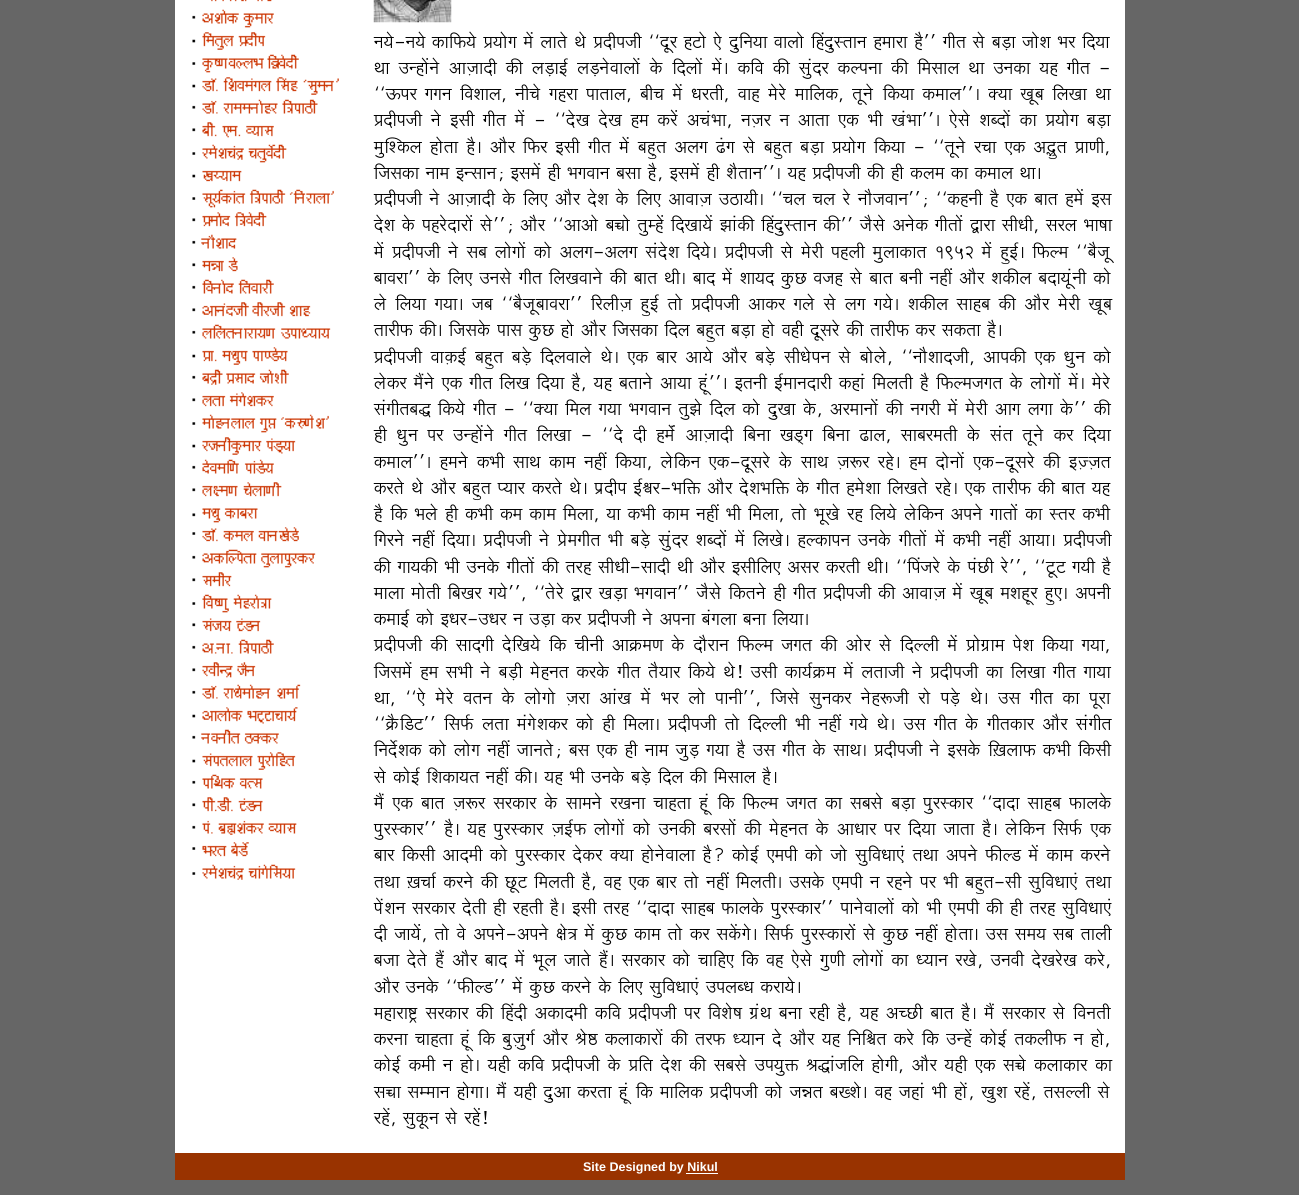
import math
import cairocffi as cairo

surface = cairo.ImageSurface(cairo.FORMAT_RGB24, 1299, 1195)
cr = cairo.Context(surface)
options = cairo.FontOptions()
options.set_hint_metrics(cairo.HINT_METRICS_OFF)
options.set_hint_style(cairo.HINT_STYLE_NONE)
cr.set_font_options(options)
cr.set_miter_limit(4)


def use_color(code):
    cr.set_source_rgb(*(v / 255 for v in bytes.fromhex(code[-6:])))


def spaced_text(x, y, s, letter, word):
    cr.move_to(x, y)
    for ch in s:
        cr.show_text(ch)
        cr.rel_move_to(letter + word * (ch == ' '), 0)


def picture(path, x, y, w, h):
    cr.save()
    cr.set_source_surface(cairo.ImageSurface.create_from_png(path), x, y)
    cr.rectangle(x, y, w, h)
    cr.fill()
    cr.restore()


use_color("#666666")
cr.paint()
use_color("#ffffff")
cr.rectangle(175, 0, 950, 1153)
cr.fill()
picture("img1.png", 211, 0, 61, 2)
picture("img2.png", 192, 9, 82, 19)
picture("img3.png", 192, 32, 74, 18)
picture("img4.png", 192, 54, 107, 19)
picture("img5.png", 192, 77, 147, 18)
picture("img6.png", 192, 99, 126, 15)
picture("img7.png", 192, 122, 82, 16)
picture("img8.png", 192, 144, 95, 19)
picture("img9.png", 192, 170, 50, 12)
picture("img10.png", 192, 189, 142, 19)
picture("img11.png", 192, 212, 75, 15)
picture("img12.png", 192, 234, 45, 15)
picture("img13.png", 192, 257, 46, 15)
picture("img14.png", 192, 279, 82, 15)
picture("img15.png", 192, 302, 119, 15)
picture("img16.png", 192, 324, 139, 15)
picture("img17.png", 192, 347, 96, 18)
picture("img18.png", 192, 369, 97, 16)
picture("img19.png", 192, 392, 82, 15)
picture("img20.png", 192, 414, 137, 19)
picture("img21.png", 192, 437, 104, 18)
picture("img22.png", 192, 459, 82, 15)
picture("img23.png", 192, 482, 90, 15)
picture("img24.png", 192, 508, 66, 15)
picture("img25.png", 192, 527, 107, 15)
picture("img26.png", 192, 549, 124, 19)
picture("img27.png", 192, 572, 40, 15)
picture("img28.png", 192, 594, 80, 19)
picture("img29.png", 192, 618, 69, 14)
picture("img30.png", 192, 639, 82, 15)
picture("img31.png", 192, 662, 64, 16)
picture("img32.png", 192, 684, 109, 15)
picture("img33.png", 192, 707, 106, 17)
picture("img34.png", 192, 729, 87, 15)
picture("img35.png", 192, 752, 104, 18)
picture("img36.png", 192, 774, 71, 15)
picture("img37.png", 192, 797, 71, 15)
picture("img38.png", 192, 820, 105, 15)
picture("img39.png", 192, 842, 57, 15)
picture("img40.png", 192, 864, 104, 16)
picture("img41.png", 373, 0, 79, 23)
cr.select_font_face("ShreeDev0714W")
cr.set_font_size(22.5)
use_color("#000000")
cr.move_to(374, 48)
cr.show_text("Z`o-Z`o")
spaced_text(432, 48, "H$m{\\$`o à`moJ _| bmVo Wo àXrnOr \"\"Xya hQ>mo Eo Xw{Z`m dmbmo qhXwñVmZ h_mam h¡'' JrV go ~‹S>m Omoe ^a {X`m", 0, 0.1)
spaced_text(374, 74, "Wm CÝhm|Zo AmµOmXr", 0, 2.5)
spaced_text(506, 74, "H$s b‹S>mB© b‹S>Zodmbm| Ho$ {Xbm| _|& H${d", 0, 2.5)
spaced_text(773, 74, "H$s gw§Xa H$ënZm H$s {_gmb Wm CZH$m `h JrV -", 0, 2.5)
cr.move_to(374, 100)
cr.show_text("\"\"D$na")
spaced_text(425, 100, "JJZ {demb, ZrMo Jham nmVmb, ~rM _| YaVr, dmh _oao _m{bH$, VyZo", 0, 1.8)
spaced_text(883, 100, "{H$`m H$_mb''& Š`m Iy~ {bIm Wm", 0, 1.8)
spaced_text(374, 126, "àXrnOr Zo Bgr", 0, 2.25)
spaced_text(483, 126, "JrV _| - \"\"XoI XoI h_ H$a| AM§^m, ZµOa Z", 0, 2.25)
spaced_text(798, 126, "AmVm EH$ ^r I§^m''& Eogo eãXm| H$m à`moJ", 0, 2.25)
cr.move_to(1087, 126)
cr.show_text("~‹S>m")
spaced_text(374, 153, "_wpíH$b hmoVm h¡& Am¡a", 0, 1.6)
spaced_text(523, 153, "{\\$a Bgr JrV _| ~hþV AbJ T§>J go ~hþV ~‹S>m à`moJ", 0, 1.6)
spaced_text(874, 153, "{H$`m - \"\"VyZo aMm EH$ AØþV àmUr,", 0, 1.6)
cr.move_to(374, 179)
cr.show_text("{OgH$m Zm_ BÝgmZ; Bg_| hr ^JdmZ ~gm h¡, Bg_| hr e¡VmZ''& `h àXrnOr H$s hr H$b_ H$m H$_mb Wm&")
spaced_text(374, 205, "àXrnOr Zo AmµOmXr Ho$ {bE Am¡a Xoe Ho$ {bE AmdmµO CR>m`r& \"\"Mb Mb ao Zm¡OdmZ''; \"\"H$hZr h¡ EH$ ~mV h_| Bg", 0, 0.75)
spaced_text(374, 231, "Xoe Ho$ nhaoXmam| go''; Am¡a \"\"AmAmo ~ƒmo Vwåh| {XIm`| Pm§H$s qhXwñVmZ H$s'' O¡go AZoH$ JrVm| Ûmam grYr, gab ^mfm", 0, 0.25)
spaced_text(374, 258, "_| àXrnOr Zo g~ bmoJm| H$mo AbJ-AbJ g§Xoe {X`o& àXrnOr go _oar nhbr _wbmH$mV 1952 _| hþB©& {\\$ë_ \"\"~¡Oy", 0, 1.25)
spaced_text(374, 284, "~mdam'' Ho$ {bE CZgo JrV {bIdmZo H$s ~mV Wr& ~mX _| em`X Hw$N> dOh go ~mV ~Zr Zht Am¡a eH$sb ~Xm`y§Zr H$mo", 0, 0.4)
spaced_text(374, 310, "bo {b`m J`m& O~ \"\"~¡Oy~mdam'' [abrµO hþB© Vmo àXrnOr AmH$a Jbo go bJ J`o& eH$sb gmh~ H$s Am¡a _oar Iy~", 0, 2)
cr.move_to(374, 336)
cr.show_text("Vmar\\$ H$s& {OgHo$ nmg Hw$N> hmo Am¡a {OgH$m {Xb ~hþV ~‹S>m hmo dhr Xygao H$s Vmar\\$ H$a gH$Vm h¡&")
spaced_text(374, 363, "àXrnOr dmµH$B© ~hþV ~‹So> {Xbdmbo Wo& EH$ ~ma Am`o Am¡a ~‹So> grYonZ go ~mobo, \"\"Zm¡emXOr, AmnH$s EH$ YwZ H$mo", 0, 1.9)
spaced_text(374, 389, "boH$a _¢Zo EH$ JrV {bI {X`m h¡, `h ~VmZo Am`m hÿ§''& BVZr B©_mZXmar H$hm§ {_bVr h¡ {\\$ë_OJV Ho$ bmoJm| _|& _oao", 0, 0.5)
spaced_text(374, 415, "g§JrV~Õ {H$`o JrV - \"\"Š`m {_b J`m ^JdmZ VwPo {Xb H$mo XwIm Ho$, Aa_mZm| H$s ZJar _| _oar AmJ bJm Ho$'' H$s", 0, 0.8)
spaced_text(374, 441, "hr YwZ na CÝhm|Zo JrV {bIm - \"\"Xo Xr h_§| AmµOmXr {~Zm IS²>J {~Zm T>mb, gm~a_Vr Ho$ g§V VyZo H$a {X`m", 0, 3.1)
spaced_text(374, 468, "H$_mb''& h_Zo H$^r gmW H$m_ Zht {H$`m, bo{H$Z EH$-Xygao Ho$ gmW µOê$a aho& h_ XmoZm| EH$-Xygao H$s BµÁµOV", 0, 1.9)
spaced_text(374, 494, "H$aVo Wo Am¡a ~hþV ß`ma H$aVo Wo& n«Xrn B©œa-^{º$ Am¡a Xoe^{º$ Ho$ JrV h_oem {bIVo aho& EH$ Vmar\\$ H$s ~mV `h", 0, 0.25)
spaced_text(374, 520, "h¡ {H$ ^bo hr H$^r H$_ H$m_ {_bm, `m H$^r H$m_ Zht ^r {_bm, Vmo ^yIo ah {b`o bo{H$Z AnZo JmVm| H$m ñVa H$^r", 0, 0.5)
spaced_text(374, 546, "{JaZo Zht {X`m& àXrnOr Zo ào_JrV ^r ~‹So> gw§Xa eãXm| _| {bIo& hëH$mnZ CZHo$ JrVm| _| H$^r Zht Am`m& àXrnOr", 0, 1)
spaced_text(374, 573, "H$s Jm`H$s ^r CZHo$ JrVm| H$s Vah grYr-gmXr Wr Am¡a Bgr{bE Aga H$aVr Wr& \"\"qnOao Ho$ n§N>r ao'', \"\"Qy>Q> J`r h¡", 0, 0.25)
spaced_text(374, 599, "_mbm _moVr {~Ia J`o'', \"\"Voao Ûma I‹S>m ^JdmZ'' O¡go {H$VZo hr JrV àXrnOr H$s AmdmµO _| Iy~ _ehÿa hþE& AnZr", 0, 0.4)
cr.move_to(374, 625)
cr.show_text("H$_mB© H$mo BYa-CYa Z C‹S>m H$a àXrnOr Zo AnZm ~§Jbm ~Zm {b`m&")
spaced_text(374, 651, "àXrnOr H$s gmXJr Xo{I`o {H$ MrZr AmH«$_U Ho$ Xm¡amZ {\\$ë_ OJV H$s Amoa go {Xëbr _| àmoJ«m_ noe {H$`m J`m,", 0, 1.8)
spaced_text(374, 678, "{Og_| h_ g^r Zo ~‹S>r _ohZV H$aHo$ JrV V¡`ma {H$`o Wo! Cgr H$m`©H«$_ _| bVmOr Zo àXrnOr H$m {bIm JrV Jm`m", 0, 1.1)
spaced_text(374, 704, "Wm, \"\"Eo _oao dVZ Ho$ bmoJmo µOam Am§I _| ^a bmo nmZr'', {Ogo gwZH$a Zohê$Or amo n‹So> Wo& Cg JrV H$m nyam", 0, 3)
spaced_text(374, 730, "\"\"H«¡${S>Q>'' {g\\©$ bVm _§JoeH$a H$mo hr {_bm& àXrnOr Vmo {Xëbr ^r Zht J`o Wo& Cg JrV Ho$ JrVH$ma Am¡a g§JrV", 0, 1.7)
spaced_text(374, 756, "{ZX}eH$ H$mo bmoJ Zht OmZVo; ~g EH$ hr Zm_ Ow‹S> J`m h¡ Cg JrV Ho$ gmW& àXrnOr Zo BgHo$ {˜bm\\$ H$^r {H$gr", 0, 0.7)
cr.move_to(374, 783)
cr.show_text("go H$moB© {eH$m`V Zht H$s& `h ^r CZHo$ ~‹So> {Xb H$s {_gmb h¡&")
spaced_text(374, 809, "_¢ EH$ ~mV µOê$a gaH$ma Ho$ gm_Zo aIZm MmhVm hÿ§ {H$ {\\$ë_ OJV H$m g~go ~‹S>m nwañH$ma \"\"XmXm gmh~ \\$mbHo$", 0, 1.5)
spaced_text(374, 835, "nwañH$ma'' h¡& `h nwañH$ma µOB©\\$ bmoJm| H$mo CZH$s ~agm| H$s _ohZV Ho$ AmYma na {X`m OmVm h¡& bo{H$Z {g\\©$ EH$", 0, 1.25)
spaced_text(374, 861, "~ma {H$gr AmX_r H$mo nwañH$ma XoH$a Š`m hmoZodmbm h¡? H$moB© E_nr H$mo Omo gw{dYmE§ VWm AnZo \\$sëS> _| H$m_ H$aZo", 0, 0.9)
spaced_text(374, 888, "VWm ˜Mm© H$aZo H$s Ny>Q> {_bVr h¡, dh EH$ ~ma Vmo Zht {_bVr& CgHo$ E_nr Z ahZo na ^r ~hþV-gr gw{dYmE§ VWm", 0, 0.5)
spaced_text(374, 914, "no§eZ gaH$ma XoVr hr ahVr h¡& Bgr Vah \"\"XmXm gmh~ \\$mbHo$ nwañH$ma'' nmZodmbm| H$mo ^r E_nr H$s hr Vah gw{dYmE§", 0, 0.25)
spaced_text(374, 940, "Xr Om`|, Vmo do AnZo-AnZo joÌ _| Hw$N> H$m_ Vmo H$a gH|$Jo& {g\\©$ nwañH$mam| go Hw$N> Zht hmoVm& Cg g_` g~ Vmbr", 0, 0.4)
spaced_text(374, 966, "~Om XoVo h¢ Am¡a ~mX _| ^yb OmVo h¢& gaH$ma H$mo Mm{hE {H$ dh Eogo JwUr bmoJm| H$m Ü`mZ aIo, CZdr XoIaoI H$ao,", 0, 1)
cr.move_to(374, 993)
cr.show_text("Am¡a CZHo$ \"\"\\$sëS>'' _| Hw$N> H$aZo Ho$ {bE gw{dYmE§ CnbãY H$am`o&")
spaced_text(374, 1019, "_hmamï´> gaH$ma H$s qhXr AH$mX_r H${d àXrnOr na {deof J«§W ~Zm ahr h¡, `h AÀN>r ~mV h¡& _¢ gaH$ma go {dZVr", 0, 1)
spaced_text(374, 1045, "H$aZm MmhVm hÿ§ {H$ ~wµOwJ© Am¡a loð> H$bmH$mam| H$s Va\\$ Ü`mZ Xo Am¡a `h {Z{üV H$ao {H$ CÝh| H$moB© VH$br\\$ Z hmo,", 0, 0.8)
spaced_text(374, 1071, "H$moB© H$_r Z hmo& `hr H${d àXrnOr Ho$ à{V Xoe H$s g~go Cn`wº$ lÕm§O{b hmoJr, Am¡a `hr EH$ gƒo H$bmH$ma H$m", 0, 1.1)
spaced_text(374, 1098, "gƒm gå_mZ hmoJm& _¢ `hr XwAm H$aVm hÿ§ {H$ _m{bH$ àXrnOr H$mo OÞV ~»eo& dh Ohm§ ^r hmo§, Iwe ah|, Vgëbr go", 0, 0.4)
cr.move_to(374, 1124)
cr.show_text("ah|, gwHy$Z go ah|!")
use_color("#993300")
cr.rectangle(175, 1153, 950, 27)
cr.fill()
cr.select_font_face("Liberation Sans", cairo.FONT_SLANT_NORMAL, cairo.FONT_WEIGHT_BOLD)
cr.set_font_size(12.5)
use_color("#ffffff")
cr.move_to(583, 1171)
cr.show_text("Site Designed by Nikul")
cr.rectangle(686, 1173, 32, 1)
cr.fill()
surface.write_to_png("result.png")
